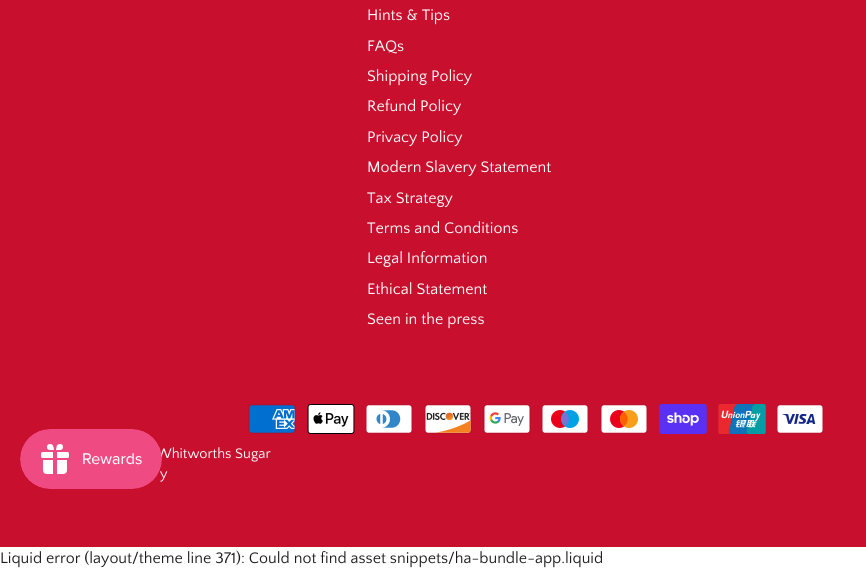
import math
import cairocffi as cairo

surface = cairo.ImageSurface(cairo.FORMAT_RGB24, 866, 569)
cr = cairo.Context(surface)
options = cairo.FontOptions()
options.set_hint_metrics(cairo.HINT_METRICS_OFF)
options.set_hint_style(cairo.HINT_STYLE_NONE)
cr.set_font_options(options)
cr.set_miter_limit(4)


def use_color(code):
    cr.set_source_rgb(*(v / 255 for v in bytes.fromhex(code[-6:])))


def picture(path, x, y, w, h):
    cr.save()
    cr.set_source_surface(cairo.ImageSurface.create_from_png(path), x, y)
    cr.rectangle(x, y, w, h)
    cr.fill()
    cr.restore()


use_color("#ffffff")
cr.paint()
use_color("#c8102e")
cr.rectangle(0, 0, 866, 547)
cr.fill()
cr.select_font_face("Quattrocento Sans")
cr.set_font_size(14.5)
use_color("#ffffff")
cr.move_to(156, 458)
cr.show_text("Whitworths Sugar")
cr.move_to(160, 478)
cr.show_text("y")
picture("img1.png", 20, 429, 142, 60)
cr.set_font_size(16)
cr.move_to(367, 20)
cr.show_text("Hints & Tips")
cr.move_to(367, 51)
cr.show_text("FAQs")
cr.move_to(367, 81)
cr.show_text("Shipping Policy")
cr.move_to(367, 111)
cr.show_text("Refund Policy")
cr.move_to(367, 142)
cr.show_text("Privacy Policy")
cr.move_to(367, 172)
cr.show_text("Modern Slavery Statement")
cr.move_to(367, 203)
cr.show_text("Tax Strategy")
cr.move_to(367, 233)
cr.show_text("Terms and Conditions")
cr.move_to(367, 263)
cr.show_text("Legal Information")
cr.move_to(367, 294)
cr.show_text("Ethical Statement")
cr.move_to(367, 324)
cr.show_text("Seen in the press")
picture("img2.png", 248, 404, 48, 30)
picture("img3.png", 307, 404, 48, 30)
picture("img4.png", 365, 404, 48, 30)
picture("img5.png", 424, 404, 48, 30)
picture("img6.png", 483, 404, 48, 30)
picture("img7.png", 541, 404, 48, 30)
picture("img8.png", 600, 404, 48, 30)
picture("img9.png", 659, 404, 48, 30)
picture("img10.png", 718, 404, 48, 30)
picture("img11.png", 776, 404, 48, 30)
use_color("#1b1b1b")
cr.move_to(0, 563)
cr.show_text("Liquid error (layout/theme line 371): Could not find asset snippets/ha-bundle-app.liquid")
surface.write_to_png("result.png")
